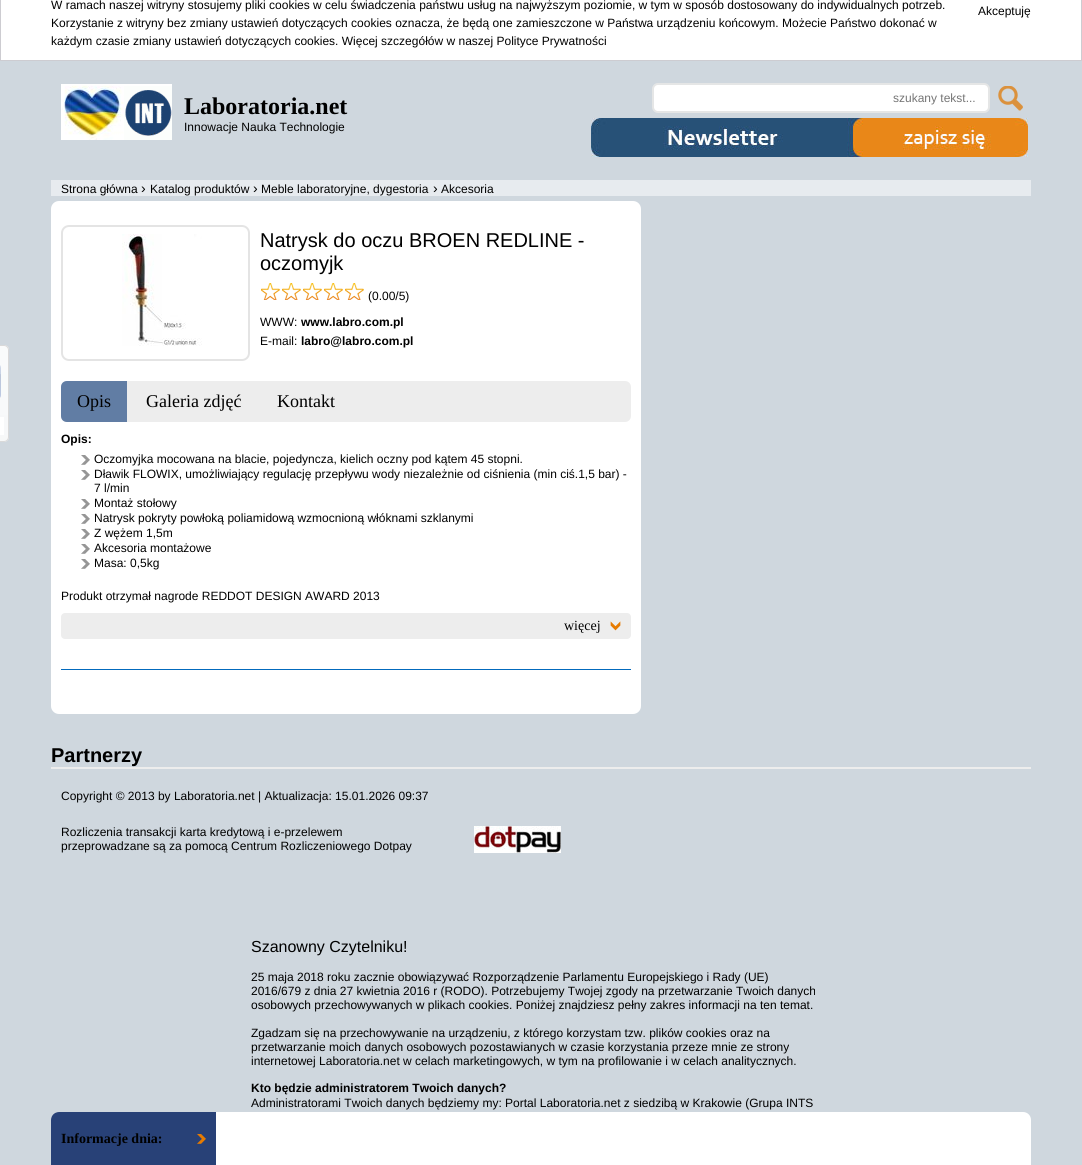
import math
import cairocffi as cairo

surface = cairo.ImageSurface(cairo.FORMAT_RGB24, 1082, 1165)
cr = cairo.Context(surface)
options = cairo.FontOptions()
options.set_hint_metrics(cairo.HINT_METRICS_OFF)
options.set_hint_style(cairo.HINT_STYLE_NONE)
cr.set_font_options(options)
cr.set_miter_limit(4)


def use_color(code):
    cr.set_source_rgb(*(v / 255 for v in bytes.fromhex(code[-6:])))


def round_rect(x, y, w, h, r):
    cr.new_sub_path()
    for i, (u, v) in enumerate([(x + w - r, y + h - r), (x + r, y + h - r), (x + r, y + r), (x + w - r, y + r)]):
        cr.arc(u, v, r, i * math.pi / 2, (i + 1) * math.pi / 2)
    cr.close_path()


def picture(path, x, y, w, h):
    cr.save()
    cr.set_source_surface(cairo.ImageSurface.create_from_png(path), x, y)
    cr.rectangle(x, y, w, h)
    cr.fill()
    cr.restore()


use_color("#cfd7de")
cr.paint()
use_color("#ffffff")
cr.rectangle(0.5, -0.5, 1081, 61)
cr.fill_preserve()
use_color("#cdccd1")
cr.set_line_width(1)
cr.stroke()
cr.select_font_face("Liberation Sans")
cr.set_font_size(12)
use_color("#000000")
cr.move_to(51, 9)
cr.show_text("W ramach naszej witryny stosujemy pliki cookies w celu świadczenia państwu usług na najwyższym poziomie, w tym w sposób dostosowany do indywidualnych potrzeb.")
cr.move_to(51, 27)
cr.show_text("Korzystanie z witryny bez zmiany ustawień dotyczących cookies oznacza, że będą one zamieszczone w Państwa urządzeniu końcowym. Możecie Państwo dokonać w")
cr.move_to(51, 45)
cr.show_text("każdym czasie zmiany ustawień dotyczących cookies. Więcej szczegółów w naszej Polityce Prywatności")
cr.move_to(978, 15)
cr.show_text("Akceptuję")
picture("img1.png", 61, 84, 111, 56)
cr.select_font_face("Liberation Serif", cairo.FONT_SLANT_NORMAL, cairo.FONT_WEIGHT_BOLD)
cr.set_font_size(24)
cr.move_to(184, 114)
cr.show_text("Laboratoria.net")
cr.select_font_face("Liberation Sans")
cr.set_font_size(12)
cr.move_to(184, 131)
cr.show_text("Innowacje Nauka Technologie")
use_color("#ffffff")
round_rect(653, 84, 336, 28, 5)
cr.fill_preserve()
use_color("#e5e6e6")
cr.set_line_width(2)
cr.stroke()
use_color("#757575")
cr.move_to(893, 102)
cr.show_text("szukany tekst...")
picture("img2.png", 998, 86, 25, 25)
picture("img3.png", 591, 118, 437, 39)
picture("img4.png", 0, 345, 9, 97)
round_rect(-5.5, 345.5, 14, 96, 4.5)
use_color("#d9d9d9")
cr.set_line_width(1)
cr.stroke()
picture("img5.png", 0, 365, 1, 33)
use_color("#ffffff")
cr.rectangle(0, 417, 4, 18)
cr.fill()
use_color("#e7ebef")
cr.rectangle(51, 180, 980, 16)
cr.fill()
use_color("#000000")
cr.move_to(61, 193)
cr.show_text("Strona główna")
cr.set_font_size(14)
cr.move_to(141, 193)
cr.show_text("›")
cr.set_font_size(12)
cr.move_to(150, 193)
cr.show_text("Katalog produktów")
cr.set_font_size(14)
cr.move_to(253, 193)
cr.show_text("›")
cr.set_font_size(12)
cr.move_to(261, 193)
cr.show_text("Meble laboratoryjne, dygestoria")
cr.set_font_size(14)
cr.move_to(433, 193)
cr.show_text("›")
cr.set_font_size(12)
cr.move_to(441, 193)
cr.show_text("Akcesoria")
use_color("#ffffff")
round_rect(51, 201, 590, 513, 8)
cr.fill()
picture("img6.png", 122, 234, 80, 112)
round_rect(62, 226, 187, 134, 7)
use_color("#e4e4e4")
cr.set_line_width(2)
cr.stroke()
cr.set_font_size(20)
use_color("#000000")
cr.move_to(260, 247)
cr.show_text("Natrysk do oczu BROEN REDLINE -")
cr.move_to(260, 270)
cr.show_text("oczomyjk")
picture("img7.png", 261, 283, 103, 17)
cr.set_font_size(12)
cr.move_to(368, 300)
cr.show_text("(0.00/5)")
cr.move_to(260, 326)
cr.show_text("WWW:")
cr.select_font_face("Liberation Sans", cairo.FONT_SLANT_NORMAL, cairo.FONT_WEIGHT_BOLD)
cr.move_to(301, 326)
cr.show_text("www.labro.com.pl")
cr.select_font_face("Liberation Sans")
cr.move_to(260, 345)
cr.show_text("E-mail:")
cr.select_font_face("Liberation Sans", cairo.FONT_SLANT_NORMAL, cairo.FONT_WEIGHT_BOLD)
cr.move_to(301, 345)
cr.show_text("labro@labro.com.pl")
use_color("#ededed")
round_rect(61, 381, 570, 41, 6)
cr.fill()
use_color("#617da4")
cr.new_path()
cr.move_to(67, 381)
cr.line_to(127, 381)
cr.line_to(127, 422)
cr.line_to(67, 422)
cr.curve_to(63.5, 422, 61, 419.5, 61, 416)
cr.line_to(61, 387)
cr.curve_to(61, 383.5, 63.5, 381, 67, 381)
cr.close_path()
cr.fill()
cr.select_font_face("Liberation Serif")
cr.set_font_size(18)
use_color("#000000")
cr.move_to(77, 407)
cr.show_text("Opis")
cr.move_to(146, 407)
cr.show_text("Galeria zdjęć")
cr.move_to(277, 407)
cr.show_text("Kontakt")
cr.select_font_face("Liberation Sans", cairo.FONT_SLANT_NORMAL, cairo.FONT_WEIGHT_BOLD)
cr.set_font_size(12)
cr.move_to(61, 443)
cr.show_text("Opis:")
picture("img8.png", 81, 455, 9, 10)
cr.select_font_face("Liberation Sans")
cr.move_to(94, 463)
cr.show_text("Oczomyjka mocowana na blacie, pojedyncza, kielich oczny pod kątem 45 stopni.")
picture("img8.png", 81, 470, 9, 10)
cr.move_to(94, 478)
cr.show_text("Dławik FLOWIX, umożliwiający regulację przepływu wody niezależnie od ciśnienia (min ciś.1,5 bar) -")
cr.move_to(94, 492)
cr.show_text("7 l/min")
picture("img8.png", 81, 499, 9, 10)
cr.move_to(94, 507)
cr.show_text("Montaż stołowy")
picture("img8.png", 81, 514, 9, 10)
cr.move_to(94, 522)
cr.show_text("Natrysk pokryty powłoką poliamidową wzmocnioną włóknami szklanymi")
picture("img8.png", 81, 529, 9, 10)
cr.move_to(94, 537)
cr.show_text("Z wężem 1,5m")
picture("img8.png", 81, 544, 9, 10)
cr.move_to(94, 552)
cr.show_text("Akcesoria montażowe")
picture("img8.png", 81, 559, 9, 10)
cr.move_to(94, 567)
cr.show_text("Masa: 0,5kg")
cr.move_to(61, 600)
cr.show_text("Produkt otrzymał nagrode REDDOT DESIGN AWARD 2013")
use_color("#ededed")
round_rect(61, 613, 570, 26, 4)
cr.fill()
picture("img9.png", 610, 621, 11, 10)
cr.select_font_face("Liberation Serif")
cr.set_font_size(14)
use_color("#000000")
cr.move_to(564, 630)
cr.show_text("więcej")
use_color("#036abd")
cr.rectangle(61, 669, 570, 1)
cr.fill()
use_color("#ededed")
cr.rectangle(51, 767, 980, 2)
cr.fill()
cr.select_font_face("Liberation Sans", cairo.FONT_SLANT_NORMAL, cairo.FONT_WEIGHT_BOLD)
cr.set_font_size(20)
use_color("#000000")
cr.move_to(51, 762)
cr.show_text("Partnerzy")
cr.select_font_face("Liberation Sans")
cr.set_font_size(12)
cr.move_to(61, 800)
cr.show_text("Copyright © 2013 by Laboratoria.net | Aktualizacja: 15.01.2026 09:37")
picture("img10.png", 474, 826, 87, 27)
cr.move_to(61, 836)
cr.show_text("Rozliczenia transakcji karta kredytową i e-przelewem")
cr.move_to(61, 850)
cr.show_text("przeprowadzane są za pomocą Centrum Rozliczeniowego Dotpay")
cr.set_font_size(16)
cr.move_to(251, 952)
cr.show_text("Szanowny Czytelniku!")
cr.set_font_size(12)
cr.move_to(251, 981)
cr.show_text("25 maja 2018 roku zacznie obowiązywać Rozporządzenie Parlamentu Europejskiego i Rady (UE)")
cr.move_to(251, 995)
cr.show_text("2016/679 z dnia 27 kwietnia 2016 r (RODO). Potrzebujemy Twojej zgody na przetwarzanie Twoich danych")
cr.move_to(251, 1009)
cr.show_text("osobowych przechowywanych w plikach cookies. Poniżej znajdziesz pełny zakres informacji na ten temat.")
cr.move_to(251, 1037)
cr.show_text("Zgadzam się na przechowywanie na urządzeniu, z którego korzystam tzw. plików cookies oraz na")
cr.move_to(251, 1051)
cr.show_text("przetwarzanie moich danych osobowych pozostawianych w czasie korzystania przeze mnie ze strony")
cr.move_to(251, 1065)
cr.show_text("internetowej Laboratoria.net w celach marketingowych, w tym na profilowanie i w celach analitycznych.")
cr.select_font_face("Liberation Sans", cairo.FONT_SLANT_NORMAL, cairo.FONT_WEIGHT_BOLD)
cr.move_to(251, 1092)
cr.show_text("Kto będzie administratorem Twoich danych?")
cr.select_font_face("Liberation Sans")
cr.move_to(251, 1107)
cr.show_text("Administratorami Twoich danych będziemy my: Portal Laboratoria.net z siedzibą w Krakowie (Grupa INTS")
use_color("#ffffff")
cr.new_path()
cr.move_to(59, 1112)
cr.line_to(1023, 1112)
cr.curve_to(1027.5, 1112, 1031, 1115.5, 1031, 1120)
cr.line_to(1031, 1165)
cr.line_to(51, 1165)
cr.line_to(51, 1120)
cr.curve_to(51, 1115.5, 54.5, 1112, 59, 1112)
cr.close_path()
cr.fill()
use_color("#284177")
cr.new_path()
cr.move_to(59, 1112)
cr.line_to(216, 1112)
cr.line_to(216, 1165)
cr.line_to(51, 1165)
cr.line_to(51, 1120)
cr.curve_to(51, 1115.5, 54.5, 1112, 59, 1112)
cr.close_path()
cr.fill()
picture("img11.png", 197, 1134, 9, 10)
cr.select_font_face("Liberation Serif", cairo.FONT_SLANT_NORMAL, cairo.FONT_WEIGHT_BOLD)
cr.set_font_size(14)
use_color("#000000")
cr.move_to(61, 1143)
cr.show_text("Informacje dnia:")
surface.write_to_png("result.png")
